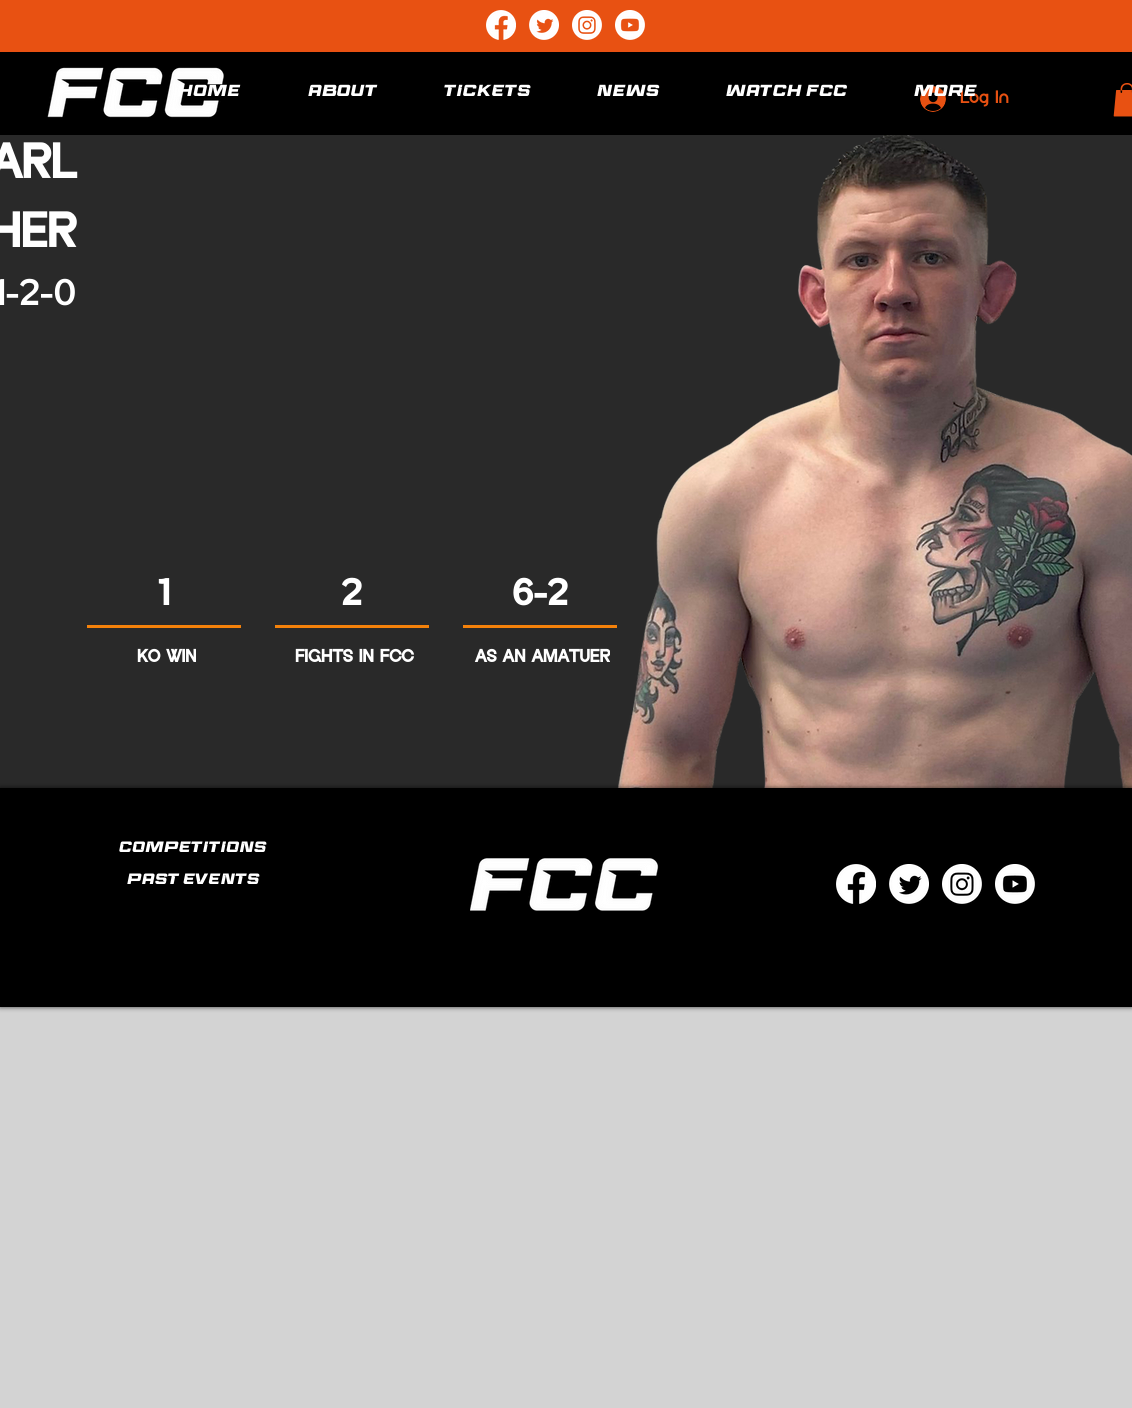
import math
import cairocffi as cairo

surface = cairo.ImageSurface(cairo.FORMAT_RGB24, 1132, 1408)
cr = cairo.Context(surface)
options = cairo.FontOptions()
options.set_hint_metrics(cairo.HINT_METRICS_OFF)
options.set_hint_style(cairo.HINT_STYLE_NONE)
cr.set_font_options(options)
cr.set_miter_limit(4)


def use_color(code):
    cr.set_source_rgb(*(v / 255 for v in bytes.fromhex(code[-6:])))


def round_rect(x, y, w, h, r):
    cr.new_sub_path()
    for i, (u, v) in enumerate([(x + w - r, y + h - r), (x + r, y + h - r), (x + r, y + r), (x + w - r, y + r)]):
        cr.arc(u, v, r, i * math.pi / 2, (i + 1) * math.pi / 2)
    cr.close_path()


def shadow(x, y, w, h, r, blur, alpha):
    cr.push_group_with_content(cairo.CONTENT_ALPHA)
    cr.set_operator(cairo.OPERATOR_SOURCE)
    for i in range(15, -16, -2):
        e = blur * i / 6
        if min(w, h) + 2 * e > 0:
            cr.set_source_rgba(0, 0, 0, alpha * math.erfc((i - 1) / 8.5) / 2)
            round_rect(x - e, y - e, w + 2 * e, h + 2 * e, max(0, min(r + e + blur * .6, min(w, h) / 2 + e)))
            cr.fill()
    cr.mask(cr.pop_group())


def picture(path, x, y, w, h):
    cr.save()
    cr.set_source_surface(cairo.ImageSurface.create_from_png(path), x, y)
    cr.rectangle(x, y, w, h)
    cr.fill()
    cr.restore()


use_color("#d3d3d3")
cr.paint()
use_color("#e85112")
cr.rectangle(0, 0, 1132, 52)
cr.fill()
picture("img1.png", 486, 10, 30, 30)
picture("img2.png", 529, 10, 30, 30)
picture("img3.png", 572, 10, 30, 30)
picture("img4.png", 615, 10, 30, 30)
use_color("#000000")
cr.rectangle(0, 52, 1132, 83)
cr.fill()
picture("img5.png", 47, 67, 177, 51)
cr.select_font_face("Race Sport")
cr.set_font_size(16)
use_color("#ffffff")
cr.move_to(178, 96)
cr.show_text("Home")
cr.move_to(308, 96)
cr.show_text("About")
cr.move_to(444, 96)
cr.show_text("TICKETS")
cr.move_to(597, 96)
cr.show_text("News")
cr.move_to(726, 96)
cr.show_text("Watch FCC")
picture("img6.png", 920, 86, 26, 26)
cr.select_font_face("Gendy")
cr.set_font_size(18)
use_color("#e85112")
cr.move_to(960, 103)
cr.show_text("Log In")
cr.select_font_face("Race Sport")
cr.set_font_size(16)
use_color("#ffffff")
cr.move_to(914, 96)
cr.show_text("More")
picture("img7.png", 1113, 83, 19, 34)
use_color("#292929")
cr.rectangle(0, 135, 1132, 653)
cr.fill()
cr.select_font_face("Gendy", cairo.FONT_SLANT_NORMAL, cairo.FONT_WEIGHT_BOLD)
cr.set_font_size(49)
use_color("#ffffff")
cr.move_to(-10, 178)
cr.show_text("ARL")
cr.move_to(-10, 247)
cr.show_text("HER")
picture("img8.png", 617, 135, 515, 653)
cr.select_font_face("Gendy")
cr.set_font_size(37)
cr.move_to(-6, 305)
cr.show_text("1-2-0")
cr.select_font_face("Gendy", cairo.FONT_SLANT_NORMAL, cairo.FONT_WEIGHT_BOLD)
cr.move_to(158, 605)
cr.show_text("1")
use_color("#f4810a")
cr.rectangle(87, 625, 154, 3)
cr.fill()
cr.set_font_size(18)
use_color("#ffffff")
cr.move_to(137, 662)
cr.show_text("KO WIN")
cr.set_font_size(37)
cr.move_to(341, 605)
cr.show_text("2")
use_color("#f4810a")
cr.rectangle(275, 625, 154, 3)
cr.fill()
cr.set_font_size(18)
use_color("#ffffff")
cr.move_to(295, 662)
cr.show_text("FIGHTS IN FCC")
cr.set_font_size(37)
cr.move_to(512, 605)
cr.show_text("6-2")
use_color("#f4810a")
cr.rectangle(463, 625, 154, 3)
cr.fill()
cr.set_font_size(18)
use_color("#ffffff")
cr.move_to(475, 662)
cr.show_text("AS AN AMATUER")
use_color("#000000")
shadow(0, 788, 1132, 219, 0, 2.5, 0.7)
use_color("#000000")
cr.rectangle(0, 788, 1132, 219)
cr.fill()
cr.select_font_face("Race Sport")
cr.set_font_size(15)
use_color("#ffffff")
cr.move_to(119, 852)
cr.show_text("COMPETITIONS")
cr.move_to(127, 884)
cr.show_text("PAST EVENTS")
picture("img9.png", 470, 858, 189, 53)
picture("img10.png", 836, 864, 40, 40)
picture("img11.png", 889, 864, 40, 40)
picture("img12.png", 942, 864, 40, 40)
picture("img13.png", 995, 864, 40, 40)
surface.write_to_png("result.png")
